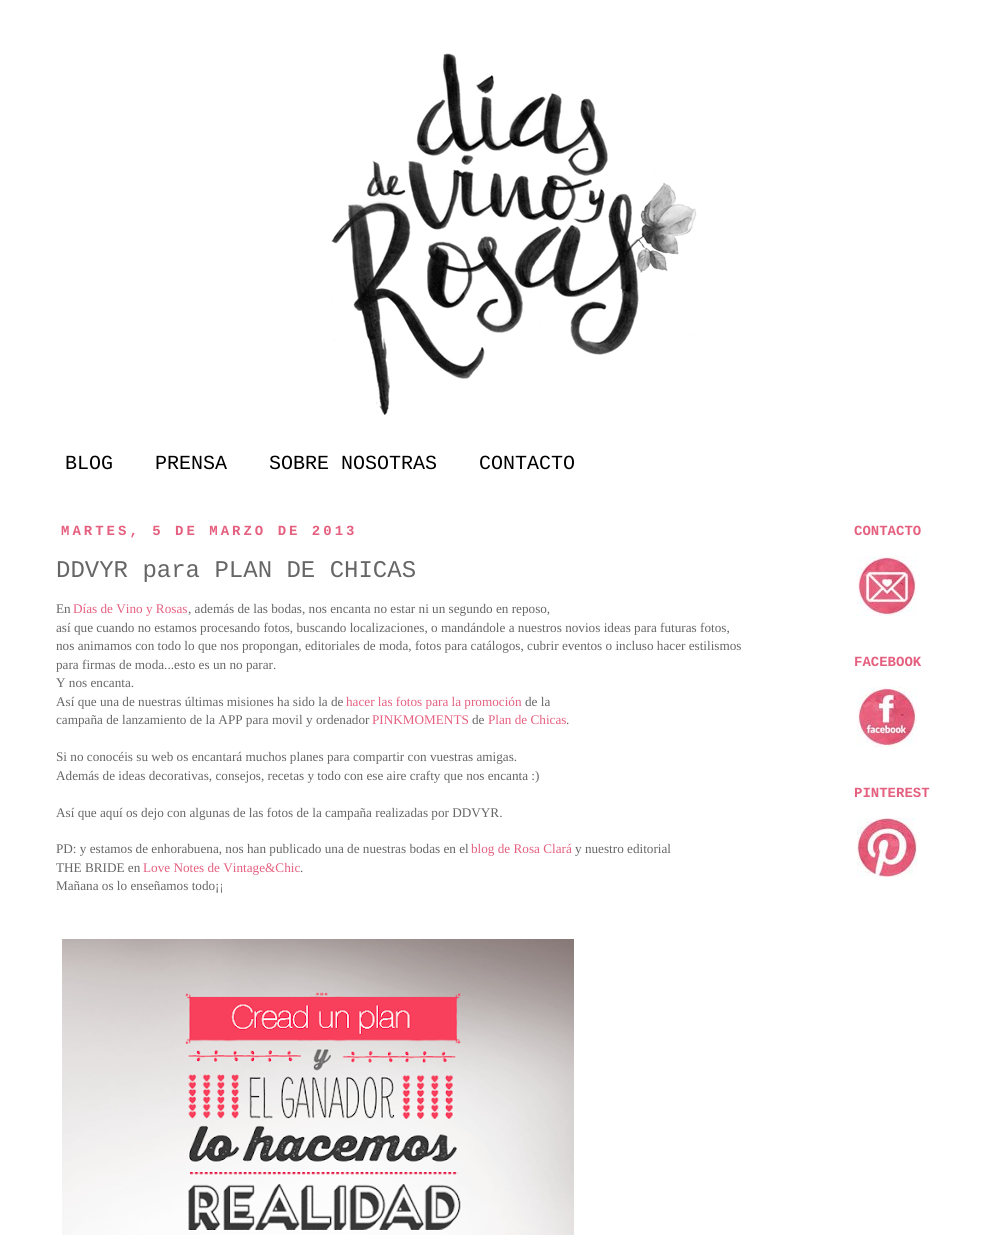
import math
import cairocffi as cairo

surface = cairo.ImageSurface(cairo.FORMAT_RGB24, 1007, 1235)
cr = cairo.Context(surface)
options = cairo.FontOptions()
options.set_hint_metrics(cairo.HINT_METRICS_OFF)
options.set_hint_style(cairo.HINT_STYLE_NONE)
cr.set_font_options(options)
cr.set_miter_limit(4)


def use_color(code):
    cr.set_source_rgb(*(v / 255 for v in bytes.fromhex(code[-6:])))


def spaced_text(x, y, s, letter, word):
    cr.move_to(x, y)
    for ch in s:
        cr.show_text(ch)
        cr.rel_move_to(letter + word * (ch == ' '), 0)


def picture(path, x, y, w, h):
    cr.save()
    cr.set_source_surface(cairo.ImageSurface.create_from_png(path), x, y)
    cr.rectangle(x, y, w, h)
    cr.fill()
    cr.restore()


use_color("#ffffff")
cr.paint()
picture("img1.png", 331, 53, 366, 362)
cr.select_font_face("Liberation Mono")
cr.set_font_size(20)
use_color("#000000")
cr.move_to(65, 469)
cr.show_text("BLOG")
cr.move_to(155, 469)
cr.show_text("PRENSA")
cr.move_to(269, 469)
cr.show_text("SOBRE NOSOTRAS")
cr.move_to(479, 469)
cr.show_text("CONTACTO")
cr.select_font_face("Liberation Mono", cairo.FONT_SLANT_NORMAL, cairo.FONT_WEIGHT_BOLD)
cr.set_font_size(14)
use_color("#e55f7f")
spaced_text(61, 535, "MARTES, 5 DE MARZO DE 2013", 3, 0)
cr.select_font_face("Liberation Mono")
cr.set_font_size(24)
use_color("#666666")
cr.move_to(56, 577)
cr.show_text("DDVYR para PLAN DE CHICAS")
cr.select_font_face("Liberation Serif")
cr.set_font_size(13.2)
cr.move_to(56, 613)
cr.show_text("En")
use_color("#e55f7f")
cr.move_to(73, 613)
cr.show_text("Días de Vino y Rosas")
use_color("#666666")
cr.move_to(188, 613)
cr.show_text(", además de las bodas, nos encanta no estar ni un segundo en reposo,")
cr.move_to(56, 632)
cr.show_text("así que cuando no estamos procesando fotos, buscando localizaciones, o mandándole a nuestros novios ideas para futuras fotos,")
cr.move_to(56, 650)
cr.show_text("nos animamos con todo lo que nos propongan, editoriales de moda, fotos para catálogos, cubrir eventos o incluso hacer estilismos")
cr.move_to(56, 669)
cr.show_text("para firmas de moda...esto es un no parar.")
cr.move_to(56, 687)
cr.show_text("Y nos encanta.")
cr.move_to(56, 706)
cr.show_text("Así que una de nuestras últimas misiones ha sido la de")
use_color("#e55f7f")
cr.move_to(346, 706)
cr.show_text("hacer las fotos para la promoción")
use_color("#666666")
cr.move_to(525, 706)
cr.show_text("de la")
cr.move_to(56, 724)
cr.show_text("campaña de lanzamiento de la APP para movil y ordenador")
use_color("#e55f7f")
cr.move_to(372, 724)
cr.show_text("PINKMOMENTS")
use_color("#666666")
cr.move_to(472, 724)
cr.show_text("de")
use_color("#e55f7f")
cr.move_to(488, 724)
cr.show_text("Plan de Chicas")
use_color("#666666")
cr.move_to(566, 724)
cr.show_text(".")
cr.move_to(56, 761)
cr.show_text("Si no conocéis su web os encantará muchos planes para compartir con vuestras amigas.")
cr.move_to(56, 780)
cr.show_text("Además de ideas decorativas, consejos, recetas y todo con ese aire crafty que nos encanta :)")
cr.move_to(56, 817)
cr.show_text("Así que aquí os dejo con algunas de las fotos de la campaña realizadas por DDVYR.")
cr.move_to(56, 853)
cr.show_text("PD: y estamos de enhorabuena, nos han publicado una de nuestras bodas en el")
use_color("#e55f7f")
cr.move_to(471, 853)
cr.show_text("blog de Rosa Clará")
use_color("#666666")
cr.move_to(575, 853)
cr.show_text("y nuestro editorial")
cr.move_to(56, 872)
cr.show_text("THE BRIDE en")
use_color("#e55f7f")
cr.move_to(143, 872)
cr.show_text("Love Notes de Vintage&Chic")
use_color("#666666")
cr.move_to(300, 872)
cr.show_text(".")
cr.move_to(56, 890)
cr.show_text("Mañana os lo enseñamos todo¡¡")
picture("img2.png", 62, 939, 512, 296)
cr.select_font_face("Liberation Mono", cairo.FONT_SLANT_NORMAL, cairo.FONT_WEIGHT_BOLD)
cr.set_font_size(14)
use_color("#e55f7f")
cr.move_to(854, 535)
cr.show_text("CONTACTO")
picture("img3.png", 857, 556, 60, 60)
cr.move_to(854, 666)
cr.show_text("FACEBOOK")
picture("img4.png", 857, 687, 60, 60)
cr.move_to(854, 797)
cr.show_text("PINTEREST")
picture("img5.png", 857, 818, 60, 59)
surface.write_to_png("result.png")
